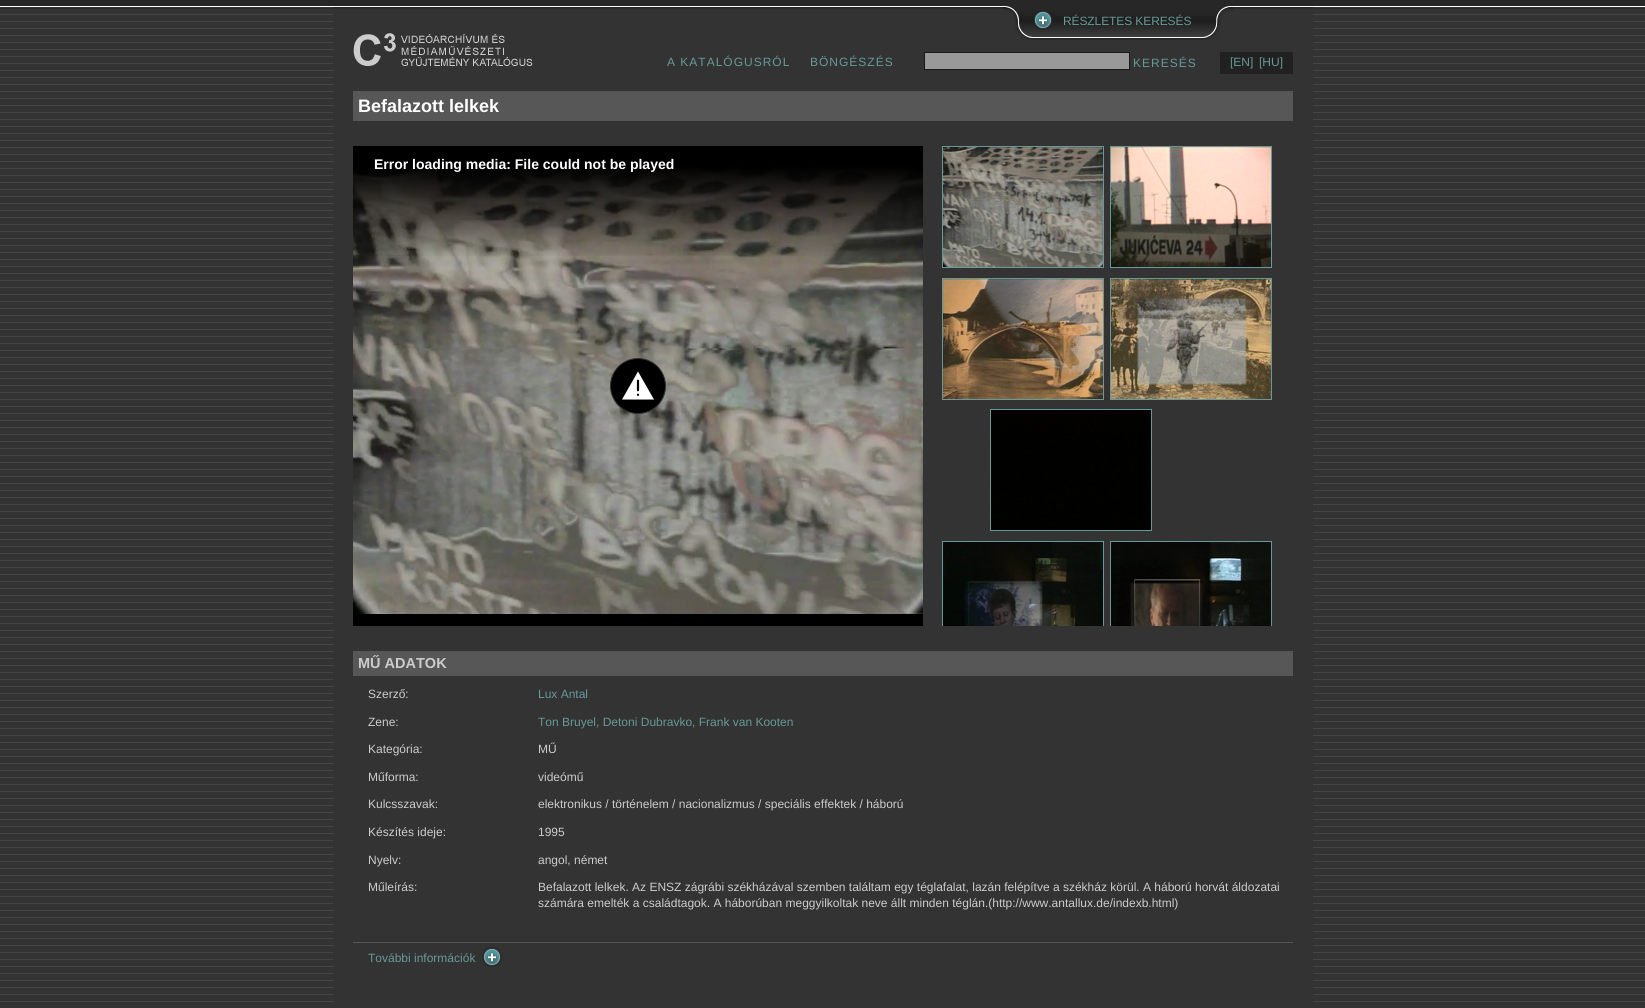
import math
import cairocffi as cairo

surface = cairo.ImageSurface(cairo.FORMAT_RGB24, 1645, 1008)
cr = cairo.Context(surface)
options = cairo.FontOptions()
options.set_hint_metrics(cairo.HINT_METRICS_OFF)
options.set_hint_style(cairo.HINT_STYLE_NONE)
cr.set_font_options(options)
cr.set_miter_limit(4)


def use_color(code):
    cr.set_source_rgb(*(v / 255 for v in bytes.fromhex(code[-6:])))


def spaced_text(x, y, s, letter, word):
    cr.move_to(x, y)
    for ch in s:
        cr.show_text(ch)
        cr.rel_move_to(letter + word * (ch == ' '), 0)


def picture(path, x, y, w, h):
    cr.save()
    cr.set_source_surface(cairo.ImageSurface.create_from_png(path), x, y)
    cr.rectangle(x, y, w, h)
    cr.fill()
    cr.restore()


use_color("#333333")
cr.paint()
picture("img1.png", 0, 7, 1645, 995)
use_color("#333333")
cr.rectangle(333, 7, 980, 995)
cr.fill()
picture("img2.png", 0, 0, 1645, 9)
picture("img3.png", 1003, 6, 30, 34)
picture("img4.png", 1033, 6, 170, 34)
picture("img5.png", 1034, 11, 18, 19)
cr.select_font_face("Liberation Sans")
cr.set_font_size(12)
use_color("#669999")
spaced_text(1063, 25, "RÉSZLETES KERESÉS", -0.1, 0)
picture("img6.png", 1203, 6, 30, 34)
picture("img7.png", 353, 33, 180, 33)
spaced_text(667, 66, "A KATALÓGUSRÓL", 1, 0)
spaced_text(810, 66, "BÖNGÉSZÉS", 1, 0)
use_color("#999999")
cr.rectangle(924.5, 52.5, 205, 17)
cr.fill_preserve()
use_color("#1a1a1a")
cr.set_line_width(1)
cr.stroke()
use_color("#669999")
spaced_text(1133, 67, "KERESÉS", 1, 0)
use_color("#212121")
cr.rectangle(1220, 52, 73, 22)
cr.fill()
use_color("#669999")
cr.move_to(1230, 66)
cr.show_text("[EN]")
cr.move_to(1259, 66)
cr.show_text("[HU]")
use_color("#575757")
cr.rectangle(353, 91, 940, 30)
cr.fill()
cr.select_font_face("Liberation Sans", cairo.FONT_SLANT_NORMAL, cairo.FONT_WEIGHT_BOLD)
cr.set_font_size(18)
use_color("#ffffff")
cr.move_to(358, 112)
cr.show_text("Befalazott lelkek")
use_color("#000000")
cr.rectangle(353, 614, 570, 12)
cr.fill()
picture("img8.png", 353, 167, 570, 447)
gradient = cairo.LinearGradient(638, 146, 638, 258)
gradient.add_color_stop_rgba(0, 0, 0, 0, 1)
gradient.add_color_stop_rgba(0.18, 0, 0, 0, 1)
gradient.add_color_stop_rgba(1, 0, 0, 0, 0)
cr.set_source(gradient)
cr.rectangle(353, 146, 570, 110)
cr.fill()
cr.set_font_size(14)
use_color("#ffffff")
cr.move_to(374, 169)
cr.show_text("Error loading media: File could not be played")
use_color("#000000")
cr.new_path()
cr.arc(638, 386, 27.5, 0, 2 * math.pi)
cr.fill_preserve()
use_color("#333333")
cr.stroke()
picture("img9.png", 622, 371, 32, 29)
cr.rectangle(942.5, 146.5, 161, 121)
use_color("#669999")
cr.stroke()
cr.rectangle(1110.5, 146.5, 161, 121)
cr.stroke()
picture("img10.png", 943, 147, 160, 120)
picture("img11.png", 1111, 147, 160, 120)
cr.rectangle(942.5, 278.5, 161, 121)
cr.stroke()
cr.rectangle(1110.5, 278.5, 161, 121)
cr.stroke()
picture("img12.png", 943, 279, 160, 120)
picture("img13.png", 1111, 279, 160, 120)
cr.rectangle(990.5, 409.5, 161, 121)
cr.stroke()
picture("img14.png", 991, 410, 160, 120)
use_color("#575757")
cr.rectangle(353, 651, 940, 25)
cr.fill()
cr.save()
cr.rectangle(942, 146, 351, 480)
cr.clip()
cr.rectangle(942.5, 541.5, 161, 121)
use_color("#669999")
cr.stroke()
cr.rectangle(1110.5, 541.5, 161, 121)
cr.stroke()
cr.restore()
picture("img15.png", 943, 542, 160, 84)
picture("img16.png", 1111, 542, 160, 84)
cr.set_font_size(14.5)
use_color("#cccccc")
cr.move_to(358, 668)
cr.show_text("MŰ ADATOK")
cr.select_font_face("Liberation Sans")
cr.set_font_size(12)
cr.move_to(368, 698)
cr.show_text("Szerző:")
use_color("#669999")
cr.move_to(538, 698)
cr.show_text("Lux Antal")
use_color("#cccccc")
cr.move_to(368, 726)
cr.show_text("Zene:")
use_color("#669999")
cr.move_to(538, 726)
cr.show_text("Ton Bruyel, Detoni Dubravko, Frank van Kooten")
use_color("#cccccc")
cr.move_to(368, 753)
cr.show_text("Kategória:")
cr.move_to(538, 753)
cr.show_text("MŰ")
cr.move_to(368, 781)
cr.show_text("Műforma:")
cr.move_to(538, 781)
cr.show_text("videómű")
cr.move_to(368, 808)
cr.show_text("Kulcsszavak:")
cr.move_to(538, 808)
cr.show_text("elektronikus / történelem / nacionalizmus / speciális effektek / háború")
cr.move_to(368, 836)
cr.show_text("Készítés ideje:")
cr.move_to(538, 836)
cr.show_text("1995")
cr.move_to(368, 864)
cr.show_text("Nyelv:")
cr.move_to(538, 864)
cr.show_text("angol, német")
cr.move_to(368, 891)
cr.show_text("Műleírás:")
cr.move_to(538, 891)
cr.show_text("Befalazott lelkek. Az ENSZ zágrábi székházával szemben találtam egy téglafalat, lazán felépítve a székház körül. A háború horvát áldozatai")
cr.move_to(538, 907)
cr.show_text("számára emelték a családtagok. A háborúban meggyilkoltak neve állt minden téglán.(http://www.antallux.de/indexb.html)")
use_color("#575757")
cr.rectangle(353, 942, 940, 1)
cr.fill()
use_color("#669999")
cr.move_to(368, 962)
cr.show_text("További információk")
picture("img17.png", 482, 947, 20, 20)
surface.write_to_png("result.png")
